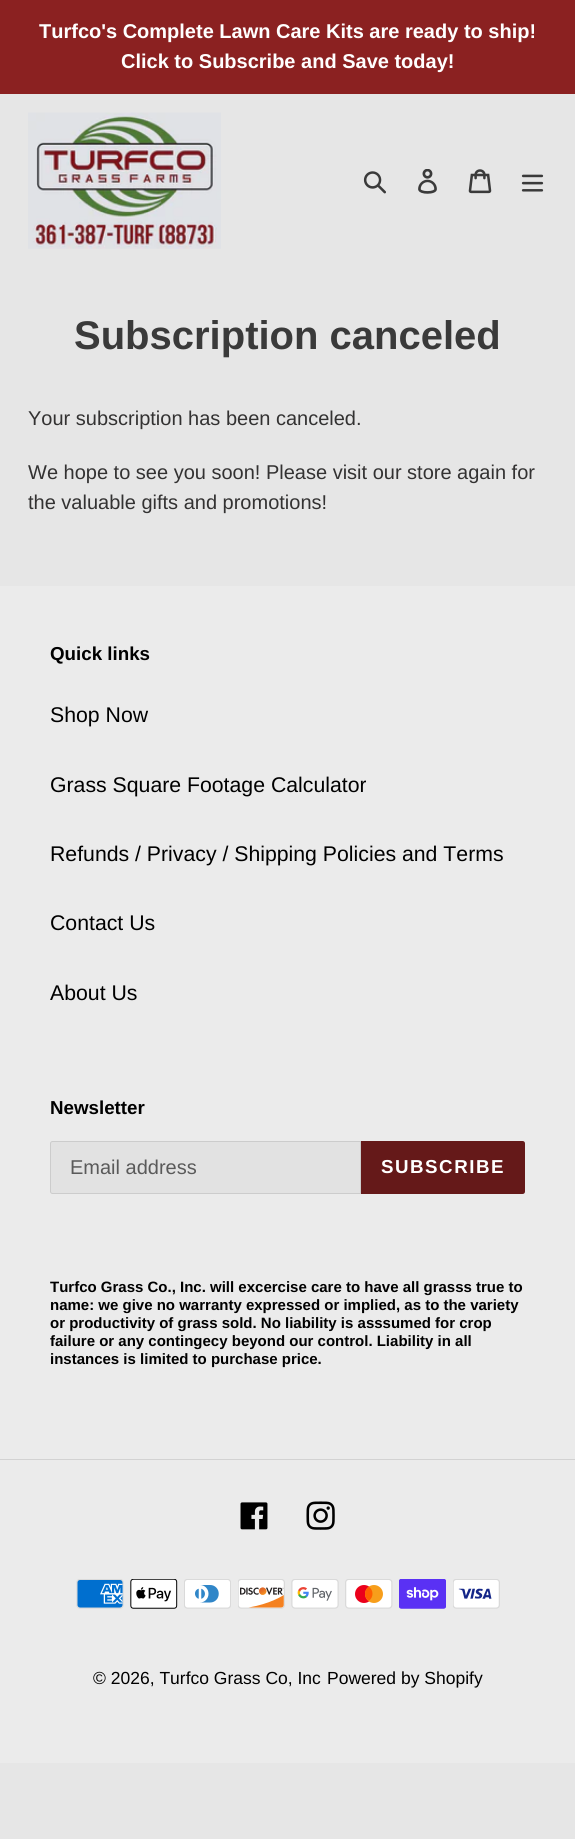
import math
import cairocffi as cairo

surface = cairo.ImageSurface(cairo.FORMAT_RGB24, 575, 1839)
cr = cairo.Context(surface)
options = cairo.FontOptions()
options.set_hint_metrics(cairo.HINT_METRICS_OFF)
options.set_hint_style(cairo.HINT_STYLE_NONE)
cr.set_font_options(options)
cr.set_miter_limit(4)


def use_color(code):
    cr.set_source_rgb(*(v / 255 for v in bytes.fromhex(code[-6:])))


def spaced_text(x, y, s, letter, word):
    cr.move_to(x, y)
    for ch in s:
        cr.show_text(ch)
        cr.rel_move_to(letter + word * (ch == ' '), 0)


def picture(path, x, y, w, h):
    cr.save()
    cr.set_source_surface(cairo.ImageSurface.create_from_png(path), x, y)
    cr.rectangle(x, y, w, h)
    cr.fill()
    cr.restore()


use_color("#e6e6e6")
cr.paint()
use_color("#8b2121")
cr.rectangle(0, 0, 575, 94)
cr.fill()
cr.select_font_face("Liberation Sans", cairo.FONT_SLANT_NORMAL, cairo.FONT_WEIGHT_BOLD)
cr.set_font_size(20)
use_color("#ffffff")
cr.move_to(39, 38)
cr.show_text("Turfco's Complete Lawn Care Kits are ready to ship!")
cr.move_to(121, 68)
cr.show_text("Click to Subscribe and Save today!")
picture("img1.png", 28, 112, 193, 137)
picture("img2.png", 363, 171, 23, 23)
picture("img3.png", 418, 169, 19, 25)
picture("img4.png", 468, 169, 24, 25)
picture("img5.png", 521, 174, 23, 18)
cr.set_font_size(40)
use_color("#3a3a3a")
cr.move_to(74, 349)
cr.show_text("Subscription canceled")
cr.select_font_face("Liberation Sans")
cr.set_font_size(20)
use_color("#333232")
cr.move_to(28, 425)
cr.show_text("Your subscription has been canceled.")
cr.move_to(28, 479)
cr.show_text("We hope to see you soon! Please visit our store again for")
cr.move_to(28, 509)
cr.show_text("the valuable gifts and promotions!")
use_color("#ebebeb")
cr.rectangle(0, 586, 575, 1177)
cr.fill()
cr.select_font_face("Liberation Sans", cairo.FONT_SLANT_NORMAL, cairo.FONT_WEIGHT_BOLD)
cr.set_font_size(18.75)
use_color("#000000")
cr.move_to(50, 660)
cr.show_text("Quick links")
cr.select_font_face("Liberation Sans")
cr.set_font_size(21.25)
cr.move_to(50, 722)
cr.show_text("Shop Now")
cr.move_to(50, 792)
cr.show_text("Grass Square Footage Calculator")
cr.move_to(50, 861)
cr.show_text("Refunds / Privacy / Shipping Policies and Terms")
cr.move_to(50, 930)
cr.show_text("Contact Us")
cr.move_to(50, 1000)
cr.show_text("About Us")
cr.select_font_face("Liberation Sans", cairo.FONT_SLANT_NORMAL, cairo.FONT_WEIGHT_BOLD)
cr.set_font_size(18.75)
cr.move_to(50, 1114)
cr.show_text("Newsletter")
use_color("#e2e2e2")
cr.new_path()
cr.move_to(52.5, 1141.5)
cr.line_to(360.5, 1141.5)
cr.line_to(360.5, 1193.5)
cr.line_to(52.5, 1193.5)
cr.curve_to(51.5, 1193.5, 50.5, 1192.5, 50.5, 1191.5)
cr.line_to(50.5, 1143.5)
cr.curve_to(50.5, 1142.5, 51.5, 1141.5, 52.5, 1141.5)
cr.close_path()
cr.fill_preserve()
use_color("#cccccc")
cr.set_line_width(1)
cr.stroke()
cr.select_font_face("Liberation Sans")
cr.set_font_size(20)
use_color("#5a5a5a")
cr.move_to(70, 1174)
cr.show_text("Email address")
use_color("#651919")
cr.new_path()
cr.move_to(361, 1141)
cr.line_to(522.5, 1141)
cr.curve_to(524, 1141, 525, 1142, 525, 1143.5)
cr.line_to(525, 1191.5)
cr.curve_to(525, 1193, 524, 1194, 522.5, 1194)
cr.line_to(361, 1194)
cr.close_path()
cr.fill()
cr.select_font_face("Liberation Sans", cairo.FONT_SLANT_NORMAL, cairo.FONT_WEIGHT_BOLD)
cr.set_font_size(18.75)
use_color("#ffffff")
spaced_text(381, 1173, "SUBSCRIBE", 1.5, 0)
cr.set_font_size(15)
use_color("#000000")
cr.move_to(50, 1292)
cr.show_text("Turfco Grass Co., Inc. will excercise care to have all grasss true to")
cr.move_to(50, 1310)
cr.show_text("name: we give no warranty expressed or implied, as to the variety")
cr.move_to(50, 1328)
cr.show_text("or productivity of grass sold. No liability is asssumed for crop")
cr.move_to(50, 1346)
cr.show_text("failure or any contingecy beyond our control. Liability in all")
cr.move_to(50, 1364)
cr.show_text("instances is limited to purchase price.")
use_color("#d2d2d2")
cr.rectangle(0, 1459, 575, 1)
cr.fill()
picture("img6.png", 240, 1502, 28, 28)
picture("img7.png", 306, 1501, 29, 29)
picture("img8.png", 76, 1579, 48, 30)
picture("img9.png", 130, 1579, 48, 30)
picture("img10.png", 184, 1579, 47, 30)
picture("img11.png", 238, 1579, 47, 30)
picture("img12.png", 291, 1579, 48, 30)
picture("img13.png", 345, 1579, 48, 30)
picture("img14.png", 399, 1579, 47, 30)
picture("img15.png", 453, 1579, 47, 30)
cr.select_font_face("Liberation Sans")
cr.set_font_size(17.5)
use_color("#000000")
cr.move_to(93, 1684)
cr.show_text("© 2026, Turfco Grass Co, Inc")
cr.move_to(327, 1684)
cr.show_text("Powered by Shopify")
surface.write_to_png("result.png")
